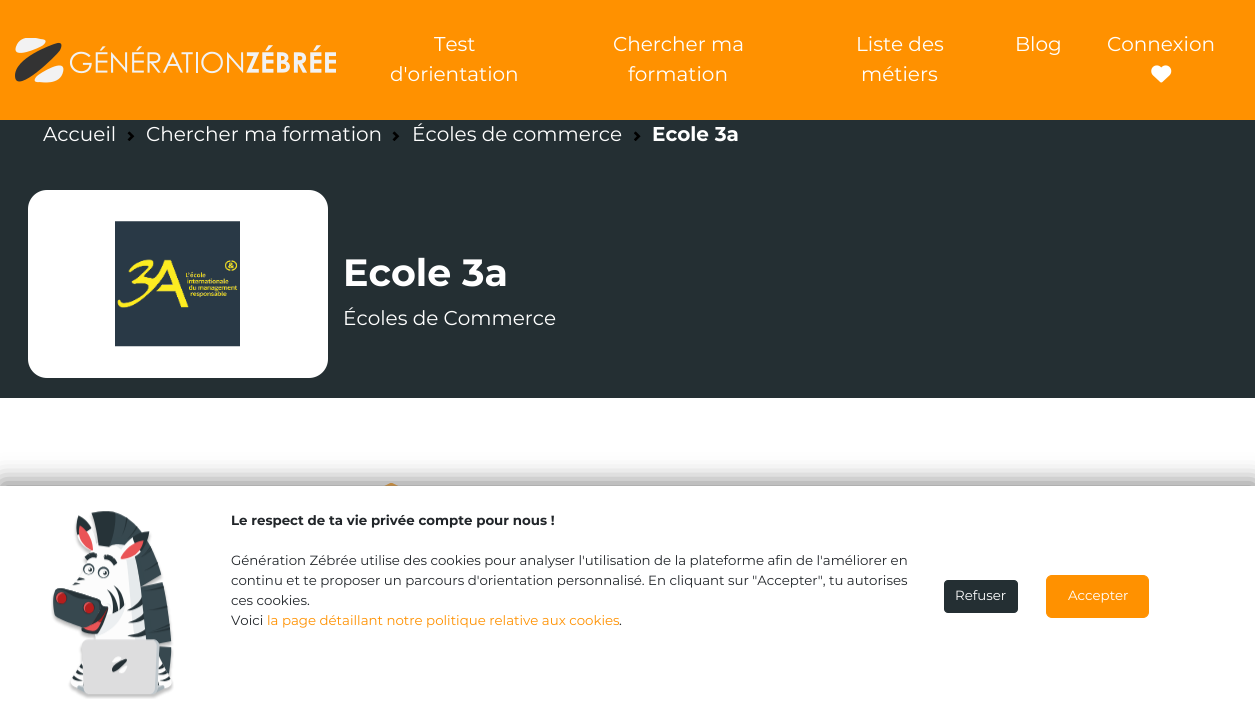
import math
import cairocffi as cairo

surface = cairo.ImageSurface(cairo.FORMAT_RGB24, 1255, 711)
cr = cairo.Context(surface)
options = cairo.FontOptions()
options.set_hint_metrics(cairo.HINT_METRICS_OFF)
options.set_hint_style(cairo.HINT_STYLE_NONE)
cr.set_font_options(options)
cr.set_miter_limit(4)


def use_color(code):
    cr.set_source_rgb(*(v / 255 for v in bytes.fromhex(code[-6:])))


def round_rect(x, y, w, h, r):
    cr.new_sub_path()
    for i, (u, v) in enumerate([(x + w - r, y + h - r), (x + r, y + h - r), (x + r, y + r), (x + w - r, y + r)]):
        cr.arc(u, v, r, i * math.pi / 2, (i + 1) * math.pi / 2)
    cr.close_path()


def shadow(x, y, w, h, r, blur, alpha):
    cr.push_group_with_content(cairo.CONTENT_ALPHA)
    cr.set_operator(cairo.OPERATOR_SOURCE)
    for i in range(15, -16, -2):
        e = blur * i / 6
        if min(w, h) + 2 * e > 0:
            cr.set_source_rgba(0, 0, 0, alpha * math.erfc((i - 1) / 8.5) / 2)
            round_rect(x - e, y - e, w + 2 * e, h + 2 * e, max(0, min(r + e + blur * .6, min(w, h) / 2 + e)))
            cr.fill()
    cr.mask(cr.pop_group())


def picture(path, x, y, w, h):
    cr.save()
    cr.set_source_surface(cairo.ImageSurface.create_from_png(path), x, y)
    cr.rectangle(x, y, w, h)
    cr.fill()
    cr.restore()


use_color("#ffffff")
cr.paint()
use_color("#ff9100")
cr.rectangle(0, 0, 1255, 120)
cr.fill()
picture("img1.png", 15, 38, 321, 45)
cr.select_font_face("Montserrat")
cr.set_font_size(20)
use_color("#ffffff")
cr.move_to(434, 51)
cr.show_text("Test")
cr.move_to(390, 81)
cr.show_text("d'orientation")
cr.move_to(613, 51)
cr.show_text("Chercher ma")
cr.move_to(628, 81)
cr.show_text("formation")
cr.move_to(856, 51)
cr.show_text("Liste des")
cr.move_to(861, 81)
cr.show_text("métiers")
cr.move_to(1015, 51)
cr.show_text("Blog")
cr.move_to(1107, 51)
cr.show_text("Connexion")
picture("img2.png", 1151, 65, 21, 18)
use_color("#242f33")
cr.rectangle(0, 120, 1255, 278)
cr.fill()
use_color("#ffffff")
cr.move_to(43, 141)
cr.show_text("Accueil")
picture("img3.png", 127, 131, 8, 10)
cr.move_to(146, 141)
cr.show_text("Chercher ma formation")
picture("img3.png", 392, 131, 8, 10)
cr.move_to(412, 141)
cr.show_text("Écoles de commerce")
picture("img4.png", 634, 131, 7, 10)
cr.select_font_face("Montserrat", cairo.FONT_SLANT_NORMAL, cairo.FONT_WEIGHT_BOLD)
cr.move_to(652, 141)
cr.show_text("Ecole 3a")
round_rect(28, 190, 300, 188, 19)
cr.fill()
picture("img5.png", 115, 221, 125, 126)
cr.set_font_size(38)
cr.move_to(343, 286)
cr.show_text("Ecole 3a")
cr.select_font_face("Montserrat")
cr.set_font_size(20)
cr.move_to(343, 325)
cr.show_text("Écoles de Commerce")
picture("img6.png", 384, 483, 14, 3)
use_color("#808080")
shadow(1, 483, 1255, 225, 0, 12.5, 1)
use_color("#ffffff")
cr.rectangle(0, 486, 1255, 225)
cr.fill()
picture("img7.png", 51, 511, 123, 188)
cr.select_font_face("Montserrat", cairo.FONT_SLANT_NORMAL, cairo.FONT_WEIGHT_BOLD)
cr.set_font_size(13.33)
use_color("#212529")
cr.move_to(231, 525)
cr.show_text("Le respect de ta vie privée compte pour nous !")
cr.select_font_face("Montserrat")
cr.move_to(231, 565)
cr.show_text("Génération Zébrée utilise des cookies pour analyser l'utilisation de la plateforme afin de l'améliorer en")
cr.move_to(231, 585)
cr.show_text("continu et te proposer un parcours d'orientation personnalisé. En cliquant sur \"Accepter\", tu autorises")
cr.move_to(231, 605)
cr.show_text("ces cookies.")
cr.move_to(231, 625)
cr.show_text("Voici")
use_color("#ff9100")
cr.move_to(267, 625)
cr.show_text("la page détaillant notre politique relative aux cookies")
use_color("#212529")
cr.move_to(619, 625)
cr.show_text(".")
use_color("#242f33")
round_rect(944.5, 580.5, 73, 32, 3.5)
cr.fill_preserve()
cr.set_line_width(1)
cr.stroke()
use_color("#ffffff")
cr.move_to(955, 600)
cr.show_text("Refuser")
use_color("#ff9100")
round_rect(1046.5, 575.5, 102, 42, 5.5)
cr.fill_preserve()
cr.stroke()
use_color("#ffffff")
cr.move_to(1068, 600)
cr.show_text("Accepter")
surface.write_to_png("result.png")
